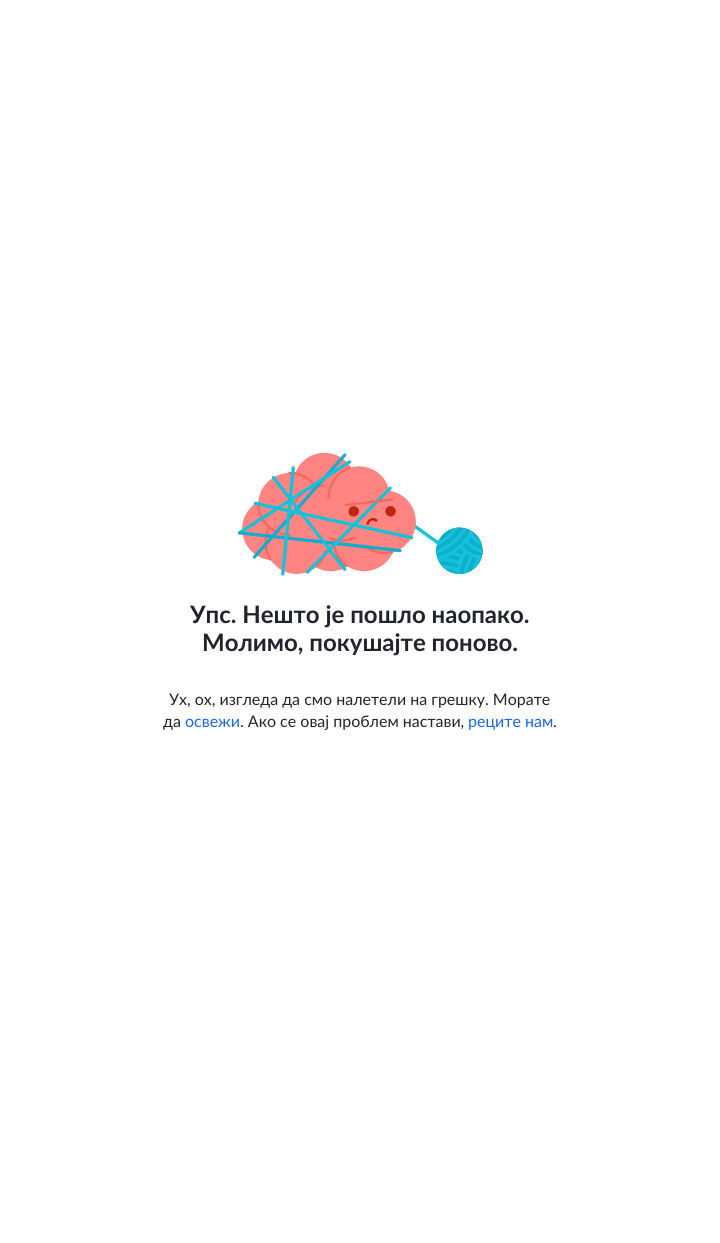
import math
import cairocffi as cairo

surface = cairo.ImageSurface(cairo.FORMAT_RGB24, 720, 1243)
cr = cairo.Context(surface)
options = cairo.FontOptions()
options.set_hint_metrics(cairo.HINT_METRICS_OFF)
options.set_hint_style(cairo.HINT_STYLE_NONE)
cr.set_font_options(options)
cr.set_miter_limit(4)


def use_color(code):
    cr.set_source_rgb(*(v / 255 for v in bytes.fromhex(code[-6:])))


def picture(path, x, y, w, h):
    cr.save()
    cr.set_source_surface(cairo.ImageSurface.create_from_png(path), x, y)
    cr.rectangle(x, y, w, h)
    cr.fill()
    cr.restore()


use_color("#ffffff")
cr.paint()
picture("img1.png", 238, 452, 245, 124)
cr.select_font_face("Lato", cairo.FONT_SLANT_NORMAL, cairo.FONT_WEIGHT_BOLD)
cr.set_font_size(24)
use_color("#21242c")
cr.move_to(190, 623)
cr.show_text("Упс. Нешто је пошло наопако.")
cr.move_to(202, 651)
cr.show_text("Молимо, покушајте поново.")
cr.select_font_face("Lato")
cr.set_font_size(16)
cr.move_to(169, 705)
cr.show_text("Ух, ох, изгледа да смо налетели на грешку. Морате")
cr.move_to(163, 727)
cr.show_text("да")
use_color("#1865f2")
cr.move_to(185, 727)
cr.show_text("освежи")
use_color("#21242c")
cr.move_to(240, 727)
cr.show_text(". Ако се овај проблем настави,")
use_color("#1865f2")
cr.move_to(468, 727)
cr.show_text("реците нам")
use_color("#21242c")
cr.move_to(553, 727)
cr.show_text(".")
surface.write_to_png("result.png")
